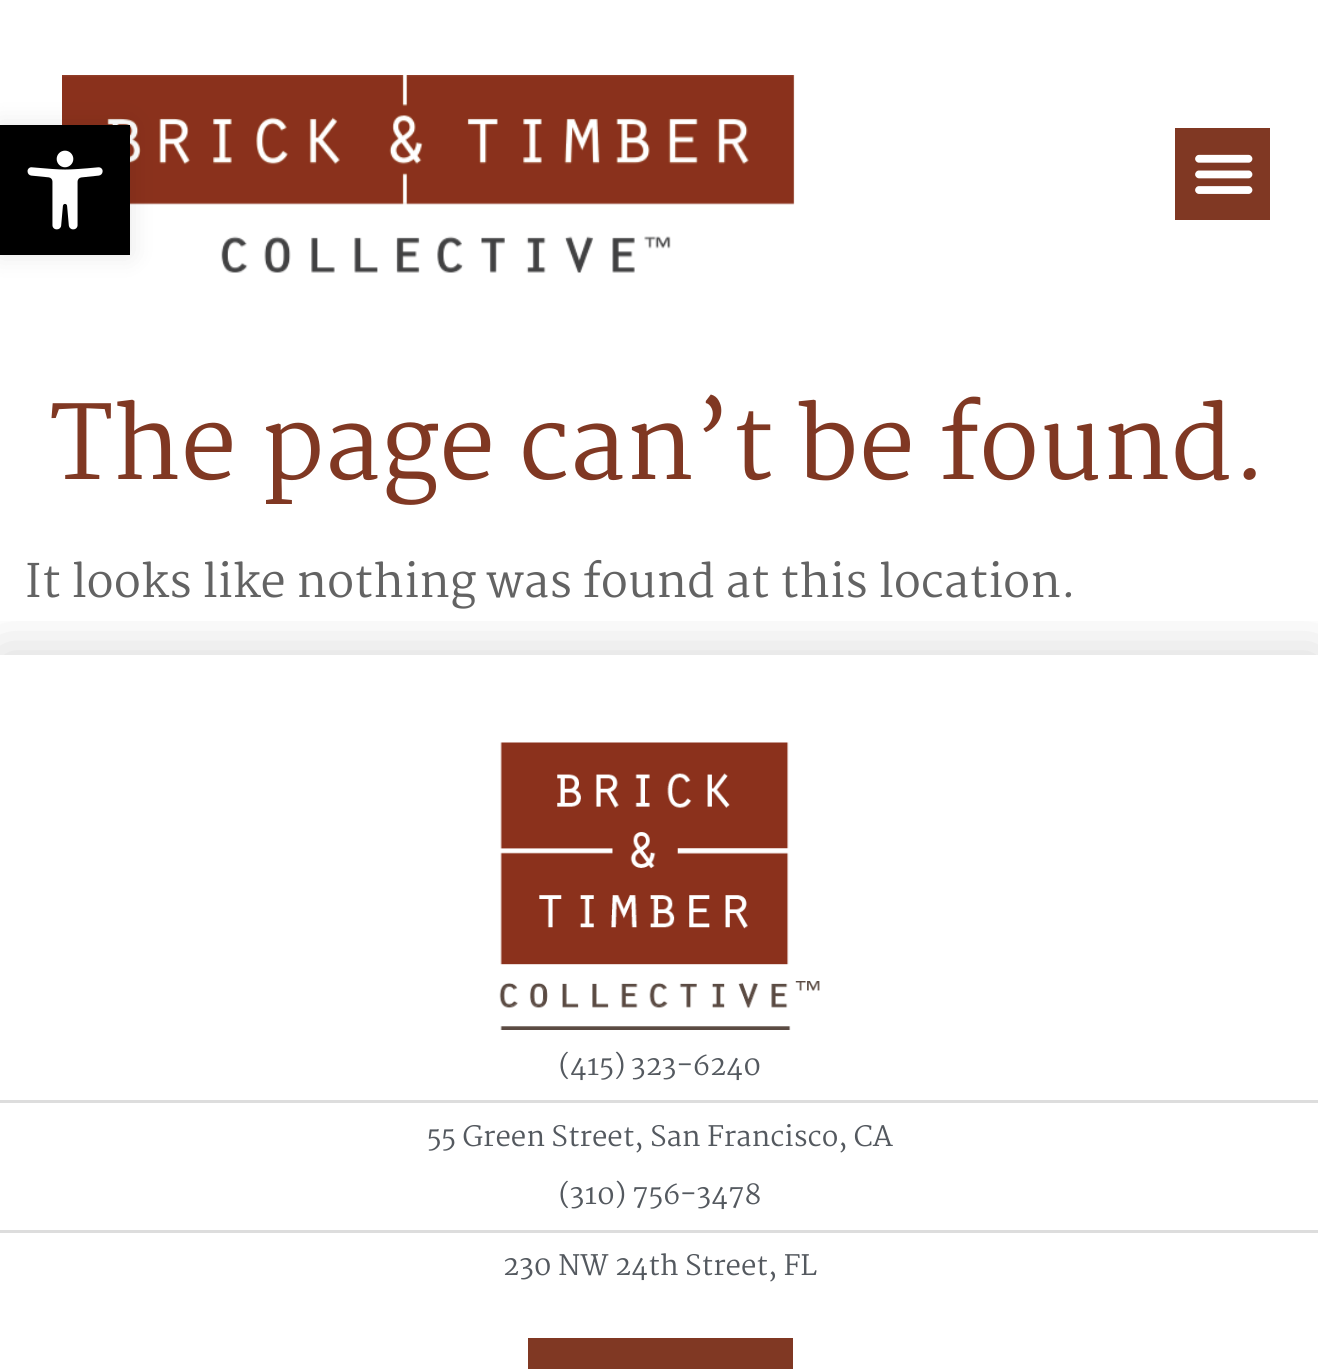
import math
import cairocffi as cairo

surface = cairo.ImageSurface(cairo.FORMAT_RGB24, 1318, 1369)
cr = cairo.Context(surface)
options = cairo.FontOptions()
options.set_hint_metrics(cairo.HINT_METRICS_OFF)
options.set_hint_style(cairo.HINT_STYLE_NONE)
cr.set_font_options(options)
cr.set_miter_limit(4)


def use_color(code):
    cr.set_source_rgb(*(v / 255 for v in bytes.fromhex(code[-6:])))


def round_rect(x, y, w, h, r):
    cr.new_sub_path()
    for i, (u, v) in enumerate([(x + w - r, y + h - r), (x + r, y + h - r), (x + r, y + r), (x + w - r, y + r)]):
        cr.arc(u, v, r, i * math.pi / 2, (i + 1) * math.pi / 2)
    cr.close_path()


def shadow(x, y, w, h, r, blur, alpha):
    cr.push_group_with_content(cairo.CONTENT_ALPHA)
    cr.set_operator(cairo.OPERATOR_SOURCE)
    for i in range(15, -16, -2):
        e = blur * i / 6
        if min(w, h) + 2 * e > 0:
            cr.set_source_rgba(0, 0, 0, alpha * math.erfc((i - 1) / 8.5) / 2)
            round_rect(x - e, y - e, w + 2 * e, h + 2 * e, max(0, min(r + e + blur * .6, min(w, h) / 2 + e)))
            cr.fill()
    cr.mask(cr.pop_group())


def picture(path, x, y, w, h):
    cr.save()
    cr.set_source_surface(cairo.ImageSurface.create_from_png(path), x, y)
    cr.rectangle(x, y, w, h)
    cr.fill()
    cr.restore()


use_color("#ffffff")
cr.paint()
picture("img1.png", 62, 75, 733, 198)
use_color("#803823")
cr.rectangle(1175, 128, 95, 92)
cr.fill()
picture("img2.png", 1195, 154, 58, 40)
use_color("#000000")
shadow(0, 125, 130, 130, 0, 12.5, 0.1)
use_color("#000000")
cr.rectangle(0, 125, 130, 130)
cr.fill()
picture("img3.png", 27, 150, 76, 80)
cr.select_font_face("Martel")
cr.set_font_size(100)
use_color("#803823")
cr.move_to(50, 479)
cr.show_text("The page can’t be found.")
cr.set_font_size(45)
use_color("#636363")
cr.move_to(25, 597)
cr.show_text("It looks like nothing was found at this location.")
cr.save()
cr.rectangle(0, 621, 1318, 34)
cr.clip()
use_color("#000000")
shadow(0, 655, 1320, 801, 0, 29, 0.17)
cr.restore()
picture("img4.png", 499, 742, 321, 288)
cr.set_font_size(27.5)
use_color("#54595f")
cr.move_to(559, 1075)
cr.show_text("(415) 323-6240")
use_color("#dddddd")
cr.rectangle(0, 1100, 1318, 3)
cr.fill()
use_color("#54595f")
cr.move_to(427, 1146)
cr.show_text("55 Green Street, San Francisco, CA")
cr.move_to(559, 1204)
cr.show_text("(310) 756-3478")
use_color("#dddddd")
cr.rectangle(0, 1230, 1318, 3)
cr.fill()
use_color("#54595f")
cr.move_to(503, 1275)
cr.show_text("230 NW 24th Street, FL")
use_color("#803823")
cr.rectangle(528, 1338, 265, 31)
cr.fill()
surface.write_to_png("result.png")
